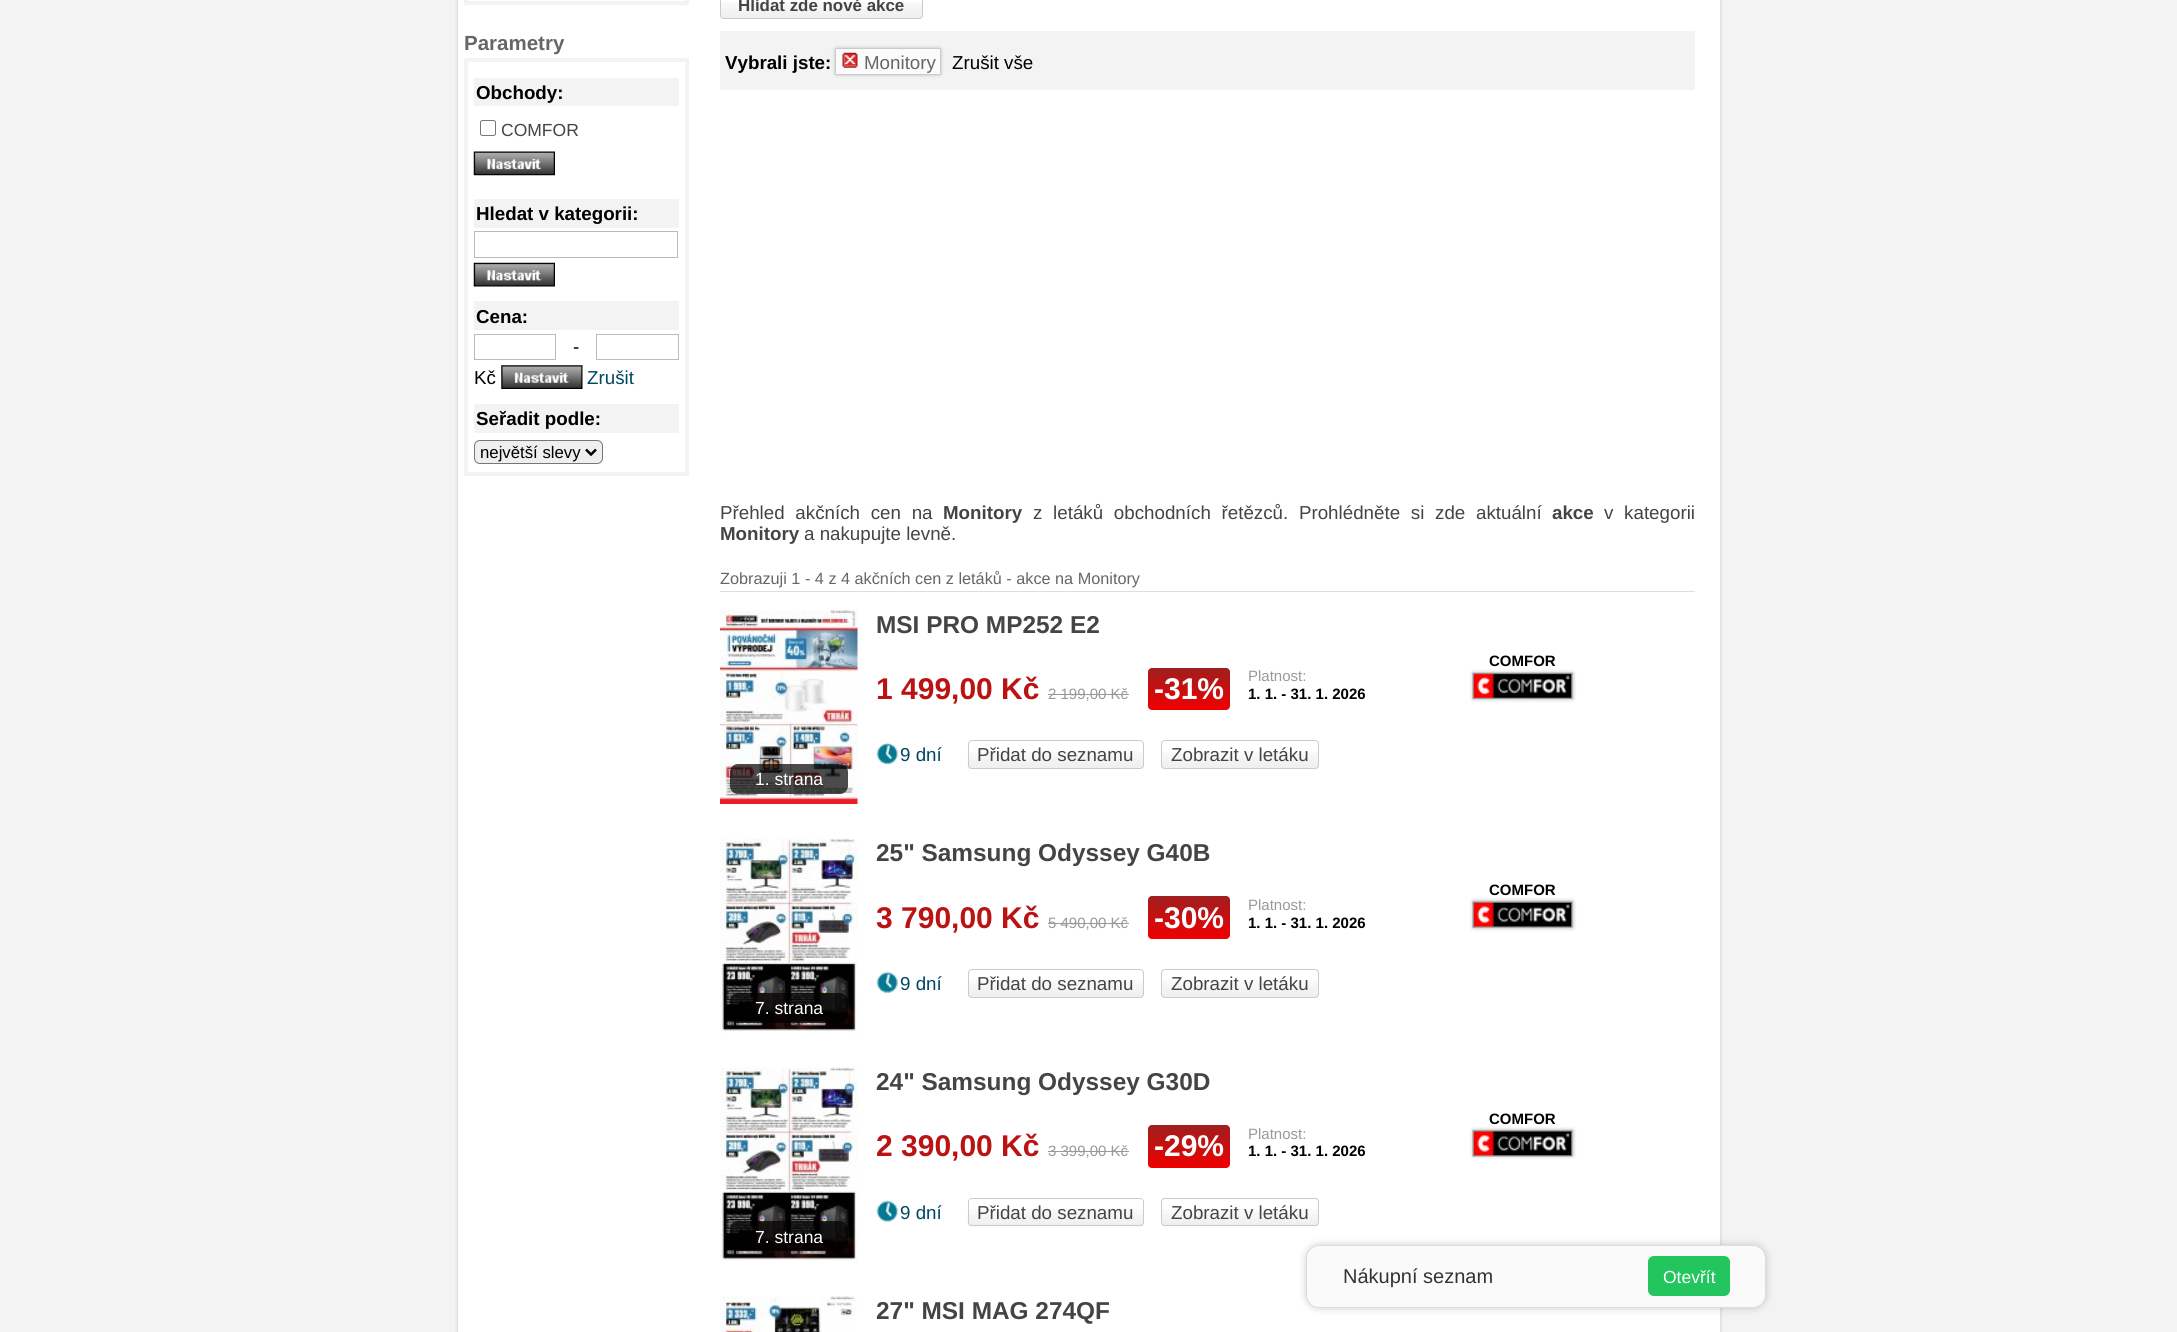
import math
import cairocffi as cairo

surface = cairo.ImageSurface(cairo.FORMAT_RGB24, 2177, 1332)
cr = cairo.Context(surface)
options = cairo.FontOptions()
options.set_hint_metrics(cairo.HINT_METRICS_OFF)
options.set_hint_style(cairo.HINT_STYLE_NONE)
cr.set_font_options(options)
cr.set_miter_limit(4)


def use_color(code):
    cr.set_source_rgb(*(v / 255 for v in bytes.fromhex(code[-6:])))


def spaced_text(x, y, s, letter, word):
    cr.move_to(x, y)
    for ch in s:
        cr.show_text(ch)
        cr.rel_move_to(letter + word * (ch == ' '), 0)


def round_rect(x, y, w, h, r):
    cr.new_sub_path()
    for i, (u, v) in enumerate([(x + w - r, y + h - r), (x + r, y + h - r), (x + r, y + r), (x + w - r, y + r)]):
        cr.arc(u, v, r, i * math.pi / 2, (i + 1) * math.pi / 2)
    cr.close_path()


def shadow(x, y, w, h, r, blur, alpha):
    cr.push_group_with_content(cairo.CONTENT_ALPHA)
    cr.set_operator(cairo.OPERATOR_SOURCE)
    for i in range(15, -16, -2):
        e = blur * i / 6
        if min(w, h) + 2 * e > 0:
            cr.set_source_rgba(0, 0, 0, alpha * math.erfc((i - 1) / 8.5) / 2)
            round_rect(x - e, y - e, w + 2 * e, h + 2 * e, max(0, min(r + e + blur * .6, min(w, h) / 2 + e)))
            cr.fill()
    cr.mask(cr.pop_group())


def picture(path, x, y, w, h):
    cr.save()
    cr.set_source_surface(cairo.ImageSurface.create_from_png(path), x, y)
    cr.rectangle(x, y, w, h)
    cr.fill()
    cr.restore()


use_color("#f3f3f3")
cr.paint()
use_color("#000000")
shadow(458, -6, 1262, 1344, 0, 2, 0.2)
use_color("#ffffff")
cr.rectangle(458, 0, 1262, 1332)
cr.fill()
cr.rectangle(466, -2, 221, 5)
use_color("#f3f3f3")
cr.set_line_width(4)
cr.stroke()
cr.select_font_face("Liberation Sans", cairo.FONT_SLANT_NORMAL, cairo.FONT_WEIGHT_BOLD)
cr.set_font_size(20.5)
use_color("#666666")
cr.move_to(464, 50)
cr.show_text("Parametry")
cr.rectangle(466, 60, 221, 414)
use_color("#f3f3f3")
cr.stroke()
cr.rectangle(474, 78, 205, 28)
cr.fill()
cr.set_font_size(18.75)
use_color("#000000")
cr.move_to(476, 99)
cr.show_text("Obchody:")
round_rect(480.5, 120.5, 15, 15, 2)
use_color("#767676")
cr.set_line_width(1)
cr.stroke()
cr.select_font_face("Liberation Sans")
cr.set_font_size(17.5)
use_color("#444444")
cr.move_to(501, 136)
cr.show_text("COMFOR")
picture("img1.png", 473, 151, 82, 25)
use_color("#f3f3f3")
cr.rectangle(474, 199, 205, 29)
cr.fill()
cr.select_font_face("Liberation Sans", cairo.FONT_SLANT_NORMAL, cairo.FONT_WEIGHT_BOLD)
cr.set_font_size(18.75)
use_color("#000000")
cr.move_to(476, 220)
cr.show_text("Hledat v kategorii:")
cr.rectangle(474.5, 231.5, 203, 26)
use_color("#bbbbbb")
cr.stroke()
picture("img2.png", 473, 262, 82, 25)
use_color("#f3f3f3")
cr.rectangle(474, 301, 205, 29)
cr.fill()
use_color("#000000")
cr.move_to(476, 323)
cr.show_text("Cena:")
cr.rectangle(474.5, 334.5, 81, 25)
use_color("#bbbbbb")
cr.stroke()
cr.select_font_face("Liberation Sans")
use_color("#000000")
cr.move_to(573, 353)
cr.show_text("-")
cr.rectangle(596.5, 334.5, 82, 25)
use_color("#bbbbbb")
cr.stroke()
use_color("#000000")
cr.move_to(474, 384)
cr.show_text("Kč")
picture("img3.png", 501, 365, 82, 24)
use_color("#004763")
cr.move_to(587, 384)
cr.show_text("Zrušit")
use_color("#f3f3f3")
cr.rectangle(474, 404, 205, 29)
cr.fill()
cr.select_font_face("Liberation Sans", cairo.FONT_SLANT_NORMAL, cairo.FONT_WEIGHT_BOLD)
use_color("#000000")
cr.move_to(476, 425)
cr.show_text("Seřadit podle:")
use_color("#efefef")
round_rect(474.5, 440.5, 128, 23, 5.5)
cr.fill_preserve()
use_color("#767676")
cr.stroke()
cr.new_path()
cr.move_to(586, 449.5)
cr.line_to(591, 454.5)
cr.line_to(596, 449.5)
use_color("#000000")
cr.set_line_width(2.5)
cr.stroke()
cr.select_font_face("Liberation Sans")
cr.set_font_size(16.75)
cr.move_to(480, 458)
cr.show_text("největší slevy")
picture("img4.png", 720, 2, 203, 17)
round_rect(720.5, -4.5, 202, 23, 3.5)
use_color("#cbcbcb")
cr.set_line_width(1)
cr.stroke()
cr.select_font_face("Liberation Sans", cairo.FONT_SLANT_NORMAL, cairo.FONT_WEIGHT_BOLD)
cr.set_font_size(16.9)
use_color("#444444")
cr.move_to(738, 11)
cr.show_text("Hlídat zde nové akce")
use_color("#f3f3f3")
cr.rectangle(720, 31, 975, 59)
cr.fill()
cr.set_font_size(18.75)
use_color("#000000")
cr.move_to(725, 69)
cr.show_text("Vybrali jste:")
use_color("#000000")
shadow(836, 49, 104, 25, 0, 2, 0.4)
use_color("#fbfbfb")
cr.rectangle(836, 49, 104, 25)
cr.fill()
picture("img5.png", 842, 52, 16, 16)
cr.select_font_face("Liberation Sans")
use_color("#666666")
cr.move_to(864, 69)
cr.show_text("Monitory")
use_color("#000000")
cr.move_to(952, 69)
cr.show_text("Zrušit vše")
use_color("#444444")
spaced_text(720, 519, "Přehled akčních cen na", 0, 5.5)
cr.select_font_face("Liberation Sans", cairo.FONT_SLANT_NORMAL, cairo.FONT_WEIGHT_BOLD)
cr.move_to(943, 519)
cr.show_text("Monitory")
cr.select_font_face("Liberation Sans")
spaced_text(1033, 519, "z letáků obchodních řetězců. Prohlédněte si zde aktuální", 0, 5.5)
cr.select_font_face("Liberation Sans", cairo.FONT_SLANT_NORMAL, cairo.FONT_WEIGHT_BOLD)
cr.move_to(1552, 519)
cr.show_text("akce")
cr.select_font_face("Liberation Sans")
spaced_text(1604, 519, "v kategorii", 0, 5.5)
cr.select_font_face("Liberation Sans", cairo.FONT_SLANT_NORMAL, cairo.FONT_WEIGHT_BOLD)
cr.move_to(720, 540)
cr.show_text("Monitory")
cr.select_font_face("Liberation Sans")
cr.move_to(804, 540)
cr.show_text("a nakupujte levně.")
use_color("#dfdddd")
cr.rectangle(720, 591, 975, 1)
cr.fill()
cr.set_font_size(16.25)
use_color("#666666")
cr.move_to(720, 584)
cr.show_text("Zobrazuji 1 - 4 z 4 akčních cen z letáků - akce na Monitory")
cr.select_font_face("Liberation Sans", cairo.FONT_SLANT_NORMAL, cairo.FONT_WEIGHT_BOLD)
cr.set_font_size(24.4)
use_color("#444444")
cr.move_to(876, 633)
cr.show_text("MSI PRO MP252 E2")
cr.set_font_size(15)
use_color("#000000")
cr.move_to(1489, 666)
cr.show_text("COMFOR")
use_color("#000000")
shadow(1473, 673, 100, 26, 0, 2, 0.3)
picture("img6.png", 1472, 672, 101, 27)
cr.set_font_size(30)
use_color("#ba1313")
cr.move_to(876, 699)
cr.show_text("1 499,00 Kč")
cr.select_font_face("Liberation Sans")
cr.set_font_size(15)
use_color("#999999")
cr.move_to(1048, 699)
cr.show_text("2 199,00 Kč")
cr.rectangle(1048, 694, 81, 1)
cr.fill()
gradient = cairo.LinearGradient(1189, 710, 1189, 668)
gradient.add_color_stop_rgba(0, 0.941, 0, 0, 1)
gradient.add_color_stop_rgba(1, 0.624, 0.118, 0.118, 1)
cr.set_source(gradient)
round_rect(1148, 668, 82, 42, 4)
cr.fill()
cr.select_font_face("Liberation Sans", cairo.FONT_SLANT_NORMAL, cairo.FONT_WEIGHT_BOLD)
cr.set_font_size(30)
use_color("#ffffff")
cr.move_to(1154, 699)
cr.show_text("-31%")
cr.select_font_face("Liberation Sans")
cr.set_font_size(15)
use_color("#999999")
cr.move_to(1248, 681)
cr.show_text("Platnost:")
cr.select_font_face("Liberation Sans", cairo.FONT_SLANT_NORMAL, cairo.FONT_WEIGHT_BOLD)
use_color("#000000")
cr.move_to(1248, 699)
cr.show_text("1. 1. - 31. 1. 2026")
picture("img7.png", 876, 742, 22, 23)
cr.select_font_face("Liberation Sans")
cr.set_font_size(18.75)
use_color("#004763")
cr.move_to(900, 761)
cr.show_text("9 dní")
picture("img8.png", 967, 752, 177, 17)
round_rect(968.5, 740.5, 175, 28, 3.5)
use_color("#cbcbcb")
cr.stroke()
use_color("#444444")
cr.move_to(977, 761)
cr.show_text("Přidat do seznamu")
picture("img9.png", 1161, 752, 158, 17)
round_rect(1161.5, 740.5, 157, 28, 3.5)
use_color("#cbcbcb")
cr.stroke()
use_color("#444444")
cr.move_to(1171, 761)
cr.show_text("Zobrazit v letáku")
picture("img10.png", 720, 610, 138, 194)
cr.set_source_rgba(0, 0, 0, 0.7)
round_rect(730, 764, 118, 30, 8)
cr.fill()
cr.set_font_size(17.5)
use_color("#ffffff")
cr.move_to(755, 785)
cr.show_text("1. strana")
cr.select_font_face("Liberation Sans", cairo.FONT_SLANT_NORMAL, cairo.FONT_WEIGHT_BOLD)
cr.set_font_size(24.4)
use_color("#444444")
cr.move_to(876, 861)
cr.show_text("25\" Samsung Odyssey G40B")
cr.set_font_size(15)
use_color("#000000")
cr.move_to(1489, 895)
cr.show_text("COMFOR")
use_color("#000000")
shadow(1473, 901, 100, 27, 0, 2, 0.3)
picture("img11.png", 1472, 901, 101, 27)
cr.set_font_size(30)
use_color("#ba1313")
cr.move_to(876, 928)
cr.show_text("3 790,00 Kč")
cr.select_font_face("Liberation Sans")
cr.set_font_size(15)
use_color("#999999")
cr.move_to(1048, 928)
cr.show_text("5 490,00 Kč")
cr.rectangle(1048, 923, 81, 1)
cr.fill()
gradient = cairo.LinearGradient(1189, 939, 1189, 896)
gradient.add_color_stop_rgba(0, 0.941, 0, 0, 1)
gradient.add_color_stop_rgba(1, 0.624, 0.118, 0.118, 1)
cr.set_source(gradient)
round_rect(1148, 896, 82, 43, 4)
cr.fill()
cr.select_font_face("Liberation Sans", cairo.FONT_SLANT_NORMAL, cairo.FONT_WEIGHT_BOLD)
cr.set_font_size(30)
use_color("#ffffff")
cr.move_to(1154, 928)
cr.show_text("-30%")
cr.select_font_face("Liberation Sans")
cr.set_font_size(15)
use_color("#999999")
cr.move_to(1248, 910)
cr.show_text("Platnost:")
cr.select_font_face("Liberation Sans", cairo.FONT_SLANT_NORMAL, cairo.FONT_WEIGHT_BOLD)
use_color("#000000")
cr.move_to(1248, 928)
cr.show_text("1. 1. - 31. 1. 2026")
picture("img12.png", 876, 971, 22, 22)
cr.select_font_face("Liberation Sans")
cr.set_font_size(18.75)
use_color("#004763")
cr.move_to(900, 990)
cr.show_text("9 dní")
picture("img13.png", 967, 980, 177, 18)
round_rect(968.5, 969.5, 175, 28, 3.5)
use_color("#cbcbcb")
cr.stroke()
use_color("#444444")
cr.move_to(977, 990)
cr.show_text("Přidat do seznamu")
picture("img14.png", 1161, 980, 158, 18)
round_rect(1161.5, 969.5, 157, 28, 3.5)
use_color("#cbcbcb")
cr.stroke()
use_color("#444444")
cr.move_to(1171, 990)
cr.show_text("Zobrazit v letáku")
picture("img15.png", 720, 839, 138, 194)
cr.set_source_rgba(0, 0, 0, 0.7)
round_rect(730, 993, 118, 30, 8)
cr.fill()
cr.set_font_size(17.5)
use_color("#ffffff")
cr.move_to(755, 1014)
cr.show_text("7. strana")
cr.select_font_face("Liberation Sans", cairo.FONT_SLANT_NORMAL, cairo.FONT_WEIGHT_BOLD)
cr.set_font_size(24.4)
use_color("#444444")
cr.move_to(876, 1090)
cr.show_text("24\" Samsung Odyssey G30D")
cr.set_font_size(15)
use_color("#000000")
cr.move_to(1489, 1124)
cr.show_text("COMFOR")
use_color("#000000")
shadow(1473, 1130, 100, 26, 0, 2, 0.3)
picture("img16.png", 1472, 1130, 101, 27)
cr.set_font_size(30)
use_color("#ba1313")
cr.move_to(876, 1156)
cr.show_text("2 390,00 Kč")
cr.select_font_face("Liberation Sans")
cr.set_font_size(15)
use_color("#999999")
cr.move_to(1048, 1156)
cr.show_text("3 399,00 Kč")
cr.rectangle(1048, 1151, 81, 1)
cr.fill()
gradient = cairo.LinearGradient(1189, 1168, 1189, 1125)
gradient.add_color_stop_rgba(0, 0.941, 0, 0, 1)
gradient.add_color_stop_rgba(1, 0.624, 0.118, 0.118, 1)
cr.set_source(gradient)
round_rect(1148, 1125, 82, 43, 4)
cr.fill()
cr.select_font_face("Liberation Sans", cairo.FONT_SLANT_NORMAL, cairo.FONT_WEIGHT_BOLD)
cr.set_font_size(30)
use_color("#ffffff")
cr.move_to(1154, 1156)
cr.show_text("-29%")
cr.select_font_face("Liberation Sans")
cr.set_font_size(15)
use_color("#999999")
cr.move_to(1248, 1139)
cr.show_text("Platnost:")
cr.select_font_face("Liberation Sans", cairo.FONT_SLANT_NORMAL, cairo.FONT_WEIGHT_BOLD)
use_color("#000000")
cr.move_to(1248, 1156)
cr.show_text("1. 1. - 31. 1. 2026")
picture("img17.png", 876, 1200, 22, 22)
cr.select_font_face("Liberation Sans")
cr.set_font_size(18.75)
use_color("#004763")
cr.move_to(900, 1219)
cr.show_text("9 dní")
picture("img18.png", 967, 1209, 177, 18)
round_rect(968.5, 1198.5, 175, 27, 3.5)
use_color("#cbcbcb")
cr.stroke()
use_color("#444444")
cr.move_to(977, 1219)
cr.show_text("Přidat do seznamu")
picture("img19.png", 1161, 1209, 158, 18)
round_rect(1161.5, 1198.5, 157, 27, 3.5)
use_color("#cbcbcb")
cr.stroke()
use_color("#444444")
cr.move_to(1171, 1219)
cr.show_text("Zobrazit v letáku")
picture("img20.png", 720, 1067, 138, 195)
cr.set_source_rgba(0, 0, 0, 0.7)
round_rect(730, 1221, 118, 30, 8)
cr.fill()
cr.set_font_size(17.5)
use_color("#ffffff")
cr.move_to(755, 1243)
cr.show_text("7. strana")
picture("img21.png", 720, 1296, 137, 36)
cr.select_font_face("Liberation Sans", cairo.FONT_SLANT_NORMAL, cairo.FONT_WEIGHT_BOLD)
cr.set_font_size(24.4)
use_color("#444444")
cr.move_to(876, 1319)
cr.show_text("27\" MSI MAG 274QF")
use_color("#000000")
shadow(1306, 1245, 460, 63, 13, 4, 0.2)
use_color("#fafafa")
round_rect(1306.5, 1245.5, 459, 62, 12.5)
cr.fill_preserve()
use_color("#dddddd")
cr.stroke()
cr.select_font_face("Liberation Sans")
cr.set_font_size(20)
use_color("#333333")
cr.move_to(1343, 1283)
cr.show_text("Nákupní seznam")
use_color("#22c55e")
round_rect(1648, 1256, 82, 40, 6)
cr.fill()
cr.set_font_size(17.5)
use_color("#ffffff")
cr.move_to(1663, 1283)
cr.show_text("Otevřít")
surface.write_to_png("result.png")
